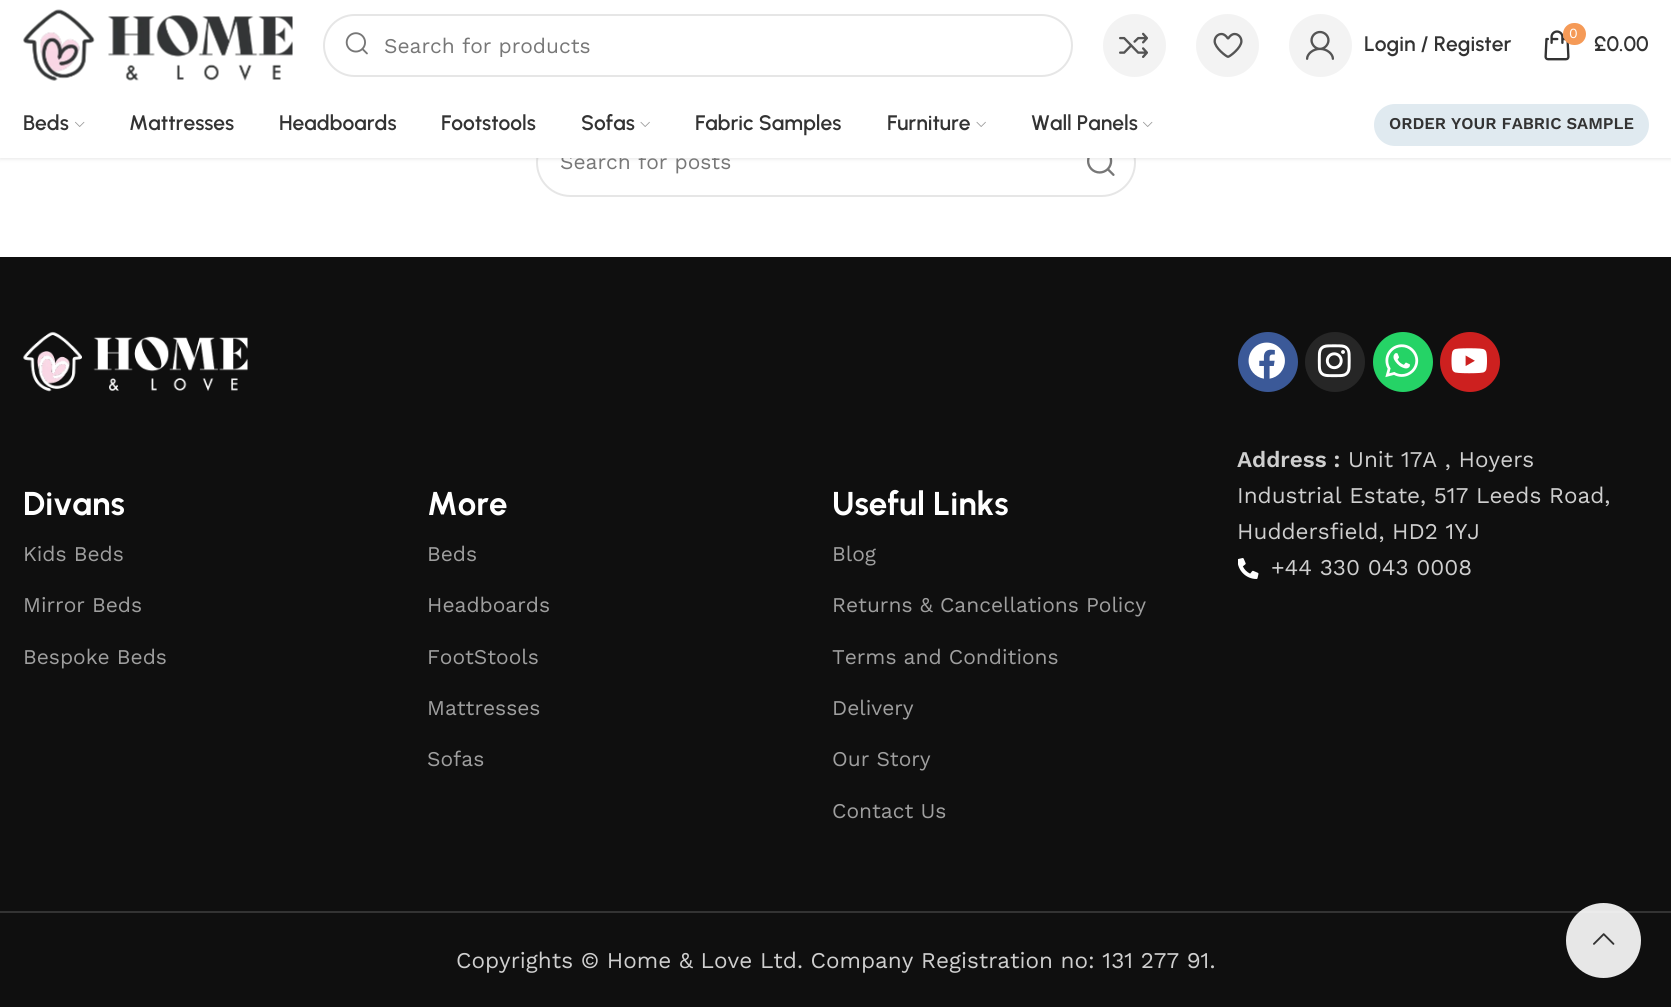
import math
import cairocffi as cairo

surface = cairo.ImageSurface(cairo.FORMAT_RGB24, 1671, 1007)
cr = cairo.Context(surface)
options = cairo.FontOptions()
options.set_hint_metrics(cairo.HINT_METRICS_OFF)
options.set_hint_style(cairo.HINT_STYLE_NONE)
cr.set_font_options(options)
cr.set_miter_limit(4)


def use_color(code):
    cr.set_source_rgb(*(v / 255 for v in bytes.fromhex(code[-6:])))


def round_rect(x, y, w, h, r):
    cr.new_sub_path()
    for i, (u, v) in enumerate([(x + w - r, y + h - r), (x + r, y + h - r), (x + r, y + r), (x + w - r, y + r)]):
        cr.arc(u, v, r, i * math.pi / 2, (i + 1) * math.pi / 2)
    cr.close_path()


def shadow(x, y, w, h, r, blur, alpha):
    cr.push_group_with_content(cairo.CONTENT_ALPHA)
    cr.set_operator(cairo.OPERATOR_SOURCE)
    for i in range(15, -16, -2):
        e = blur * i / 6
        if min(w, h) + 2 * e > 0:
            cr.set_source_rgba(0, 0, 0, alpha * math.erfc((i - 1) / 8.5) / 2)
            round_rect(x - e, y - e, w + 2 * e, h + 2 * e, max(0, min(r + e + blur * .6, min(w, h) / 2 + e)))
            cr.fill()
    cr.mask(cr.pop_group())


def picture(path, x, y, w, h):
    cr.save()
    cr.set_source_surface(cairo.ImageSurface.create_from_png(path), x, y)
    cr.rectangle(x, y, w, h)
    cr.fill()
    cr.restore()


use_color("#ffffff")
cr.paint()
round_rect(537, 129, 598, 67, 33.5)
use_color("#e6e6e6")
cr.stroke()
picture("img9.png", 1087, 158, 28, 18)
use_color("#000000")
shadow(0, 2, 1671, 157, 0, 2, 0.1)
cr.select_font_face("Work Sans")
cr.set_font_size(21)
use_color("#777777")
cr.move_to(560, 169)
cr.show_text("Search for posts")
use_color("#ffffff")
cr.rectangle(0, 0, 1671, 158)
cr.fill()
picture("img1.png", 23, 9, 270, 72)
round_rect(324, 15, 748, 61, 30.5)
use_color("#e6e6e6")
cr.stroke()
picture("img2.png", 345, 32, 23, 23)
cr.save()
cr.rectangle(384, 33, 642, 24)
cr.clip()
use_color("#777777")
cr.move_to(384, 53)
cr.show_text("Search for products")
cr.restore()
use_color("#f3f3f3")
cr.new_path()
cr.arc(1134.5, 45.5, 31.5, 0, 2 * math.pi)
cr.fill()
picture("img3.png", 1119, 32, 29, 26)
cr.arc(1227.5, 45.5, 31.5, 0, 2 * math.pi)
cr.fill()
picture("img4.png", 1213, 32, 30, 26)
cr.arc(1320.5, 45.5, 31.5, 0, 2 * math.pi)
cr.fill()
picture("img5.png", 1306, 30, 28, 30)
cr.select_font_face("Urbanist SemiBold")
use_color("#333333")
cr.move_to(1364, 51)
cr.show_text("Login / Register")
picture("img6.png", 1544, 30, 26, 31)
use_color("#f59a57")
round_rect(1563, 23, 23, 22, 11)
cr.fill()
cr.select_font_face("Work Sans")
cr.set_font_size(14)
use_color("#ffffff")
cr.move_to(1569, 38)
cr.show_text("0")
cr.select_font_face("Urbanist SemiBold")
cr.set_font_size(21)
use_color("#333333")
cr.move_to(1594, 51)
cr.show_text("£0.00")
cr.move_to(23, 130)
cr.show_text("Beds")
picture("img7.png", 75, 121, 10, 6)
cr.move_to(129, 130)
cr.show_text("Mattresses")
cr.move_to(279, 130)
cr.show_text("Headboards")
cr.move_to(441, 130)
cr.show_text("Footstools")
cr.move_to(581, 130)
cr.show_text("Sofas")
picture("img8.png", 640, 121, 10, 6)
cr.move_to(695, 130)
cr.show_text("Fabric Samples")
cr.move_to(887, 130)
cr.show_text("Furniture")
picture("img8.png", 976, 121, 10, 6)
cr.move_to(1031, 130)
cr.show_text("Wall Panels")
picture("img7.png", 1143, 121, 10, 6)
use_color("#e0eaf0")
round_rect(1374, 104, 275, 42, 21)
cr.fill()
cr.select_font_face("Work Sans SemiBold")
cr.set_font_size(16.5)
use_color("#333333")
cr.move_to(1389, 129)
cr.show_text("ORDER YOUR FABRIC SAMPLE")
use_color("#0f0f0f")
cr.rectangle(0, 257, 1671, 750)
cr.fill()
picture("img10.png", 23, 331, 225, 61)
cr.select_font_face("Urbanist", cairo.FONT_SLANT_NORMAL, cairo.FONT_WEIGHT_BOLD)
cr.set_font_size(33)
use_color("#ffffff")
cr.move_to(23, 515)
cr.show_text("Divans")
cr.select_font_face("Work Sans")
cr.set_font_size(21)
use_color("#9f9f9f")
cr.move_to(23, 561)
cr.show_text("Kids Beds")
cr.move_to(23, 612)
cr.show_text("Mirror Beds")
cr.move_to(23, 664)
cr.show_text("Bespoke Beds")
cr.select_font_face("Urbanist", cairo.FONT_SLANT_NORMAL, cairo.FONT_WEIGHT_BOLD)
cr.set_font_size(33)
use_color("#ffffff")
cr.move_to(427, 515)
cr.show_text("More")
cr.select_font_face("Work Sans")
cr.set_font_size(21)
use_color("#9f9f9f")
cr.move_to(427, 561)
cr.show_text("Beds")
cr.move_to(427, 612)
cr.show_text("Headboards")
cr.move_to(427, 664)
cr.show_text("FootStools")
cr.move_to(427, 715)
cr.show_text("Mattresses")
cr.move_to(427, 766)
cr.show_text("Sofas")
cr.select_font_face("Urbanist", cairo.FONT_SLANT_NORMAL, cairo.FONT_WEIGHT_BOLD)
cr.set_font_size(33)
use_color("#ffffff")
cr.move_to(832, 515)
cr.show_text("Useful Links")
cr.select_font_face("Work Sans")
cr.set_font_size(21)
use_color("#9f9f9f")
cr.move_to(832, 561)
cr.show_text("Blog")
cr.move_to(832, 612)
cr.show_text("Returns & Cancellations Policy")
cr.move_to(832, 664)
cr.show_text("Terms and Conditions")
cr.move_to(832, 715)
cr.show_text("Delivery")
cr.move_to(832, 766)
cr.show_text("Our Story")
cr.move_to(832, 818)
cr.show_text("Contact Us")
use_color("#3b5998")
cr.new_path()
cr.arc(1268, 362, 30, 0, 2 * math.pi)
cr.fill()
picture("img11.png", 1248, 342, 37, 37)
use_color("#262626")
cr.arc(1335, 362, 30, 0, 2 * math.pi)
cr.fill()
picture("img12.png", 1317, 344, 34, 34)
use_color("#25d366")
cr.arc(1403, 362, 30, 0, 2 * math.pi)
cr.fill()
picture("img13.png", 1385, 344, 34, 34)
use_color("#cd201f")
cr.arc(1470, 362, 30, 0, 2 * math.pi)
cr.fill()
picture("img14.png", 1451, 348, 36, 26)
cr.select_font_face("Work Sans SemiBold")
cr.set_font_size(22.5)
use_color("#cfcfcf")
cr.move_to(1237, 467)
cr.show_text("Address :")
cr.select_font_face("Work Sans")
cr.move_to(1348, 467)
cr.show_text("Unit 17A , Hoyers")
cr.move_to(1237, 503)
cr.show_text("Industrial Estate, 517 Leeds Road,")
cr.move_to(1237, 539)
cr.show_text("Huddersfield, HD2 1YJ")
picture("img15.png", 1238, 558, 21, 21)
cr.move_to(1271, 575)
cr.show_text("+44 330 043 0008")
use_color("#333333")
cr.rectangle(0, 911, 1671, 2)
cr.fill()
use_color("#cfcfcf")
cr.move_to(456, 968)
cr.show_text("Copyrights © Home & Love Ltd. Company Registration no: 131 277 91.")
cr.set_source_rgba(1, 1, 1, 0.9)
cr.new_path()
cr.arc(1603.5, 940.5, 37.5, 0, 2 * math.pi)
cr.fill()
picture("img16.png", 1593, 933, 22, 12)
surface.write_to_png("result.png")
